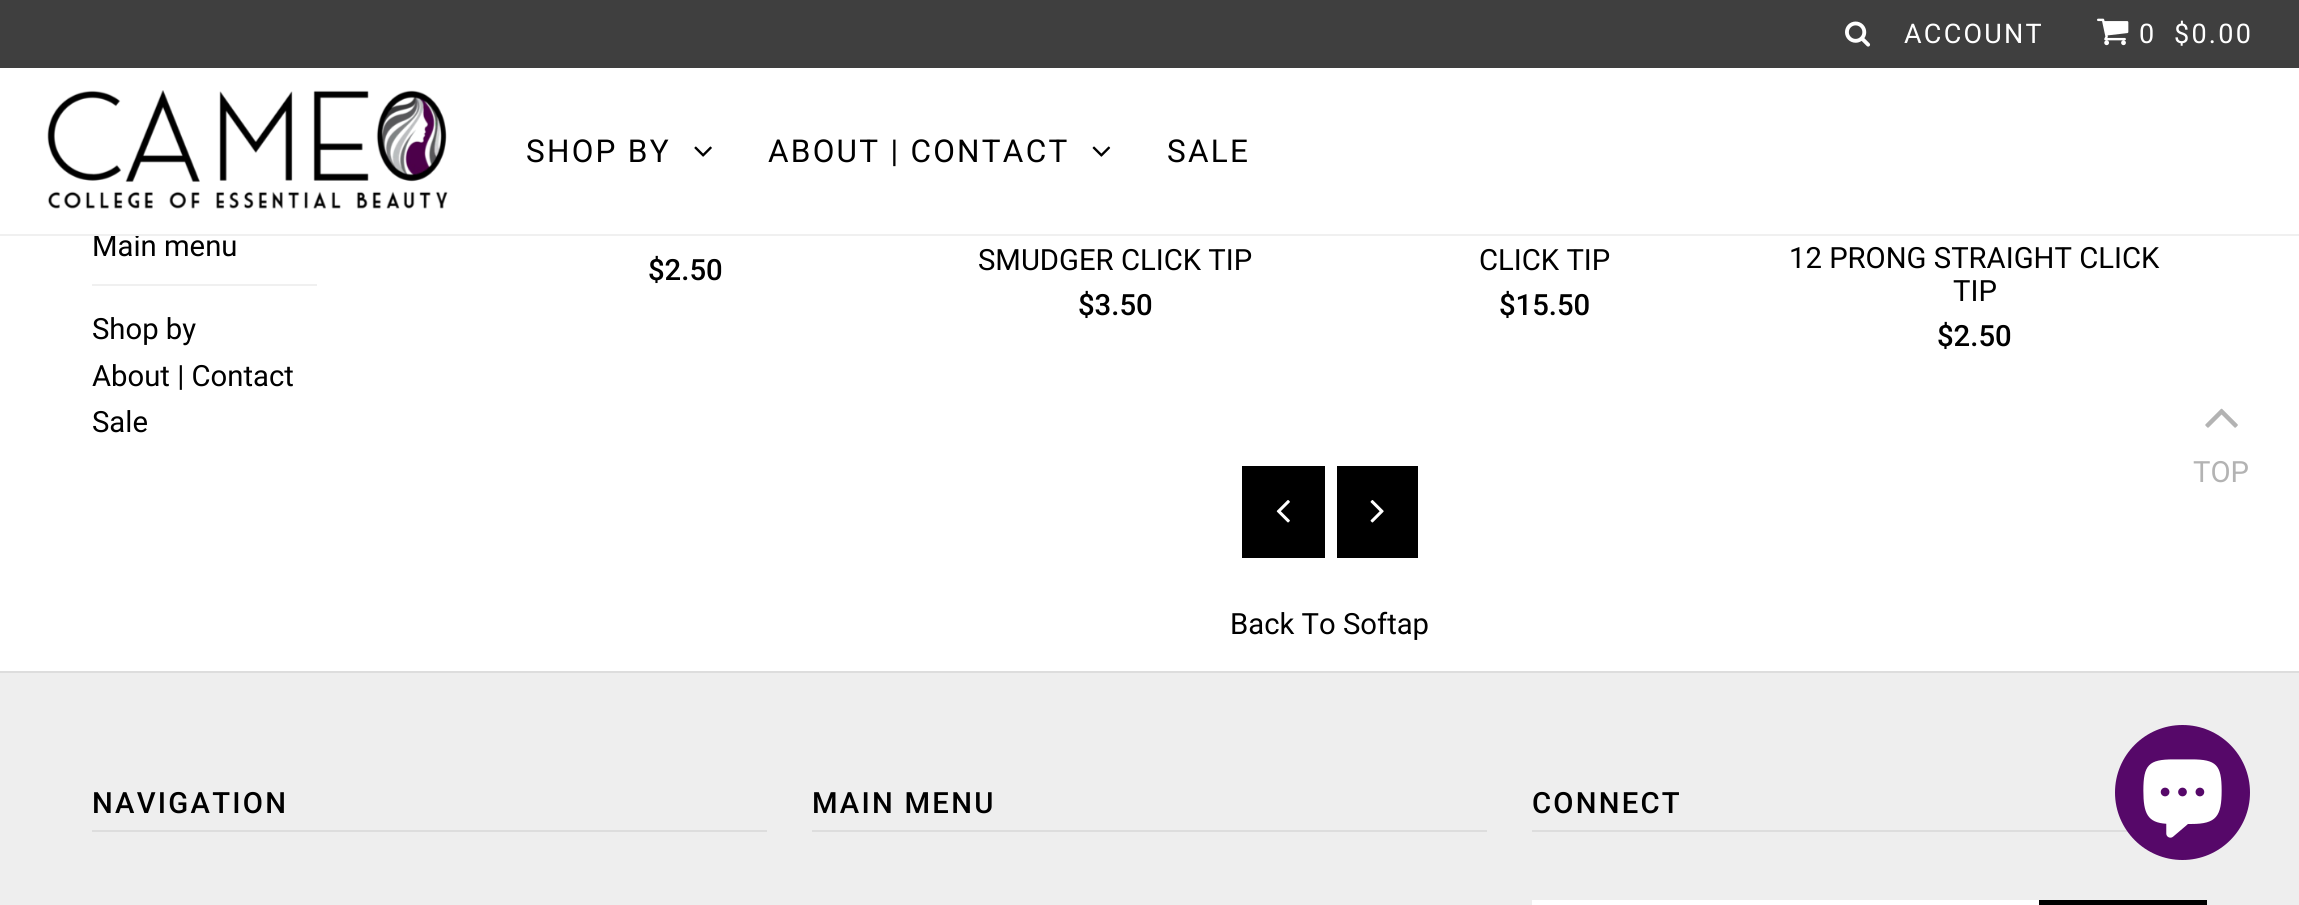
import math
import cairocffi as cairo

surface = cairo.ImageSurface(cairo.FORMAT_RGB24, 2299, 905)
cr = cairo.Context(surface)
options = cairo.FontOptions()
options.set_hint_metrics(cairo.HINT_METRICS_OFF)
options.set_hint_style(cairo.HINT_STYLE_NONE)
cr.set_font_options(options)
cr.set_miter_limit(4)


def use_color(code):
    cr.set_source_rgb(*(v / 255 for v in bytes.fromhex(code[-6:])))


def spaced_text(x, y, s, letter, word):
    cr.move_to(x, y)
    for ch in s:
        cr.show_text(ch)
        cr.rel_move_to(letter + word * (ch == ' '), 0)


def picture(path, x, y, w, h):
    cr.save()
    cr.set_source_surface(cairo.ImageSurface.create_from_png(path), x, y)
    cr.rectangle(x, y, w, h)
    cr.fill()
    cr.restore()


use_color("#ffffff")
cr.paint()
cr.select_font_face("Roboto")
cr.set_font_size(29.25)
use_color("#000000")
cr.move_to(92, 256)
cr.show_text("Main menu")
use_color("#f0f0f0")
cr.rectangle(0, 234, 2299, 2)
cr.fill()
use_color("#3f3f3f")
cr.rectangle(0, 0, 2299, 68)
cr.fill()
picture("img1.png", 1845, 21, 26, 26)
cr.set_font_size(27)
use_color("#ffffff")
spaced_text(1904, 43, "ACCOUNT", 2.25, 0)
picture("img2.png", 2097, 18, 32, 28)
spaced_text(2139, 43, "0", 2.25, 0)
spaced_text(2174, 43, "$0.00", 2.25, 0)
picture("img3.png", 47, 90, 401, 119)
cr.set_font_size(31.5)
use_color("#000000")
spaced_text(526, 162, "SHOP BY", 2.25, 0)
picture("img4.png", 694, 146, 18, 11)
spaced_text(768, 162, "ABOUT | CONTACT", 2.25, 0)
picture("img5.png", 1092, 146, 19, 11)
spaced_text(1167, 162, "SALE", 2.25, 0)
use_color("#f0f0f0")
cr.rectangle(92, 284, 225, 2)
cr.fill()
cr.set_font_size(29.25)
use_color("#000000")
cr.move_to(92, 339)
cr.show_text("Shop by")
cr.move_to(92, 386)
cr.show_text("About | Contact")
cr.move_to(92, 432)
cr.show_text("Sale")
cr.select_font_face("Roboto Medium")
cr.move_to(648, 280)
cr.show_text("$2.50")
cr.select_font_face("Roboto")
cr.move_to(978, 270)
cr.show_text("SMUDGER CLICK TIP")
cr.select_font_face("Roboto Medium")
cr.move_to(1078, 315)
cr.show_text("$3.50")
cr.select_font_face("Roboto")
cr.move_to(1479, 270)
cr.show_text("CLICK TIP")
cr.select_font_face("Roboto Medium")
cr.move_to(1499, 315)
cr.show_text("$15.50")
cr.select_font_face("Roboto")
cr.move_to(1789, 268)
cr.show_text("12 PRONG STRAIGHT CLICK")
cr.move_to(1953, 301)
cr.show_text("TIP")
cr.select_font_face("Roboto Medium")
cr.move_to(1937, 346)
cr.show_text("$2.50")
cr.rectangle(1242, 466, 83, 92)
cr.fill()
picture("img6.png", 1276, 500, 14, 23)
cr.rectangle(1337, 466, 81, 92)
cr.fill()
picture("img7.png", 1370, 500, 14, 23)
cr.select_font_face("Roboto")
cr.move_to(1230, 634)
cr.show_text("Back To Softap")
use_color("#eeeeee")
cr.rectangle(0, 673, 2299, 232)
cr.fill()
use_color("#dddddd")
cr.rectangle(0, 671, 2299, 2)
cr.fill()
cr.rectangle(92, 830, 675, 2)
cr.fill()
cr.select_font_face("Roboto Medium")
use_color("#000000")
spaced_text(92, 813, "NAVIGATION", 2.25, 0)
use_color("#dddddd")
cr.rectangle(812, 830, 675, 2)
cr.fill()
use_color("#000000")
spaced_text(812, 813, "MAIN MENU", 2.25, 0)
use_color("#dddddd")
cr.rectangle(1532, 830, 596, 2)
cr.fill()
use_color("#000000")
spaced_text(1532, 813, "CONNECT", 2.25, 0)
use_color("#ffffff")
cr.rectangle(1532, 900, 507, 5)
cr.fill()
use_color("#000000")
cr.rectangle(2039, 900, 168, 5)
cr.fill()
picture("img8.png", 2205, 408, 33, 20)
cr.select_font_face("Roboto")
use_color("#b3b3b3")
cr.move_to(2193, 482)
cr.show_text("TOP")
use_color("#560869")
cr.new_path()
cr.arc(2182.5, 792.5, 67.5, 0, 2 * math.pi)
cr.fill()
picture("img9.png", 2143, 759, 79, 79)
surface.write_to_png("result.png")
